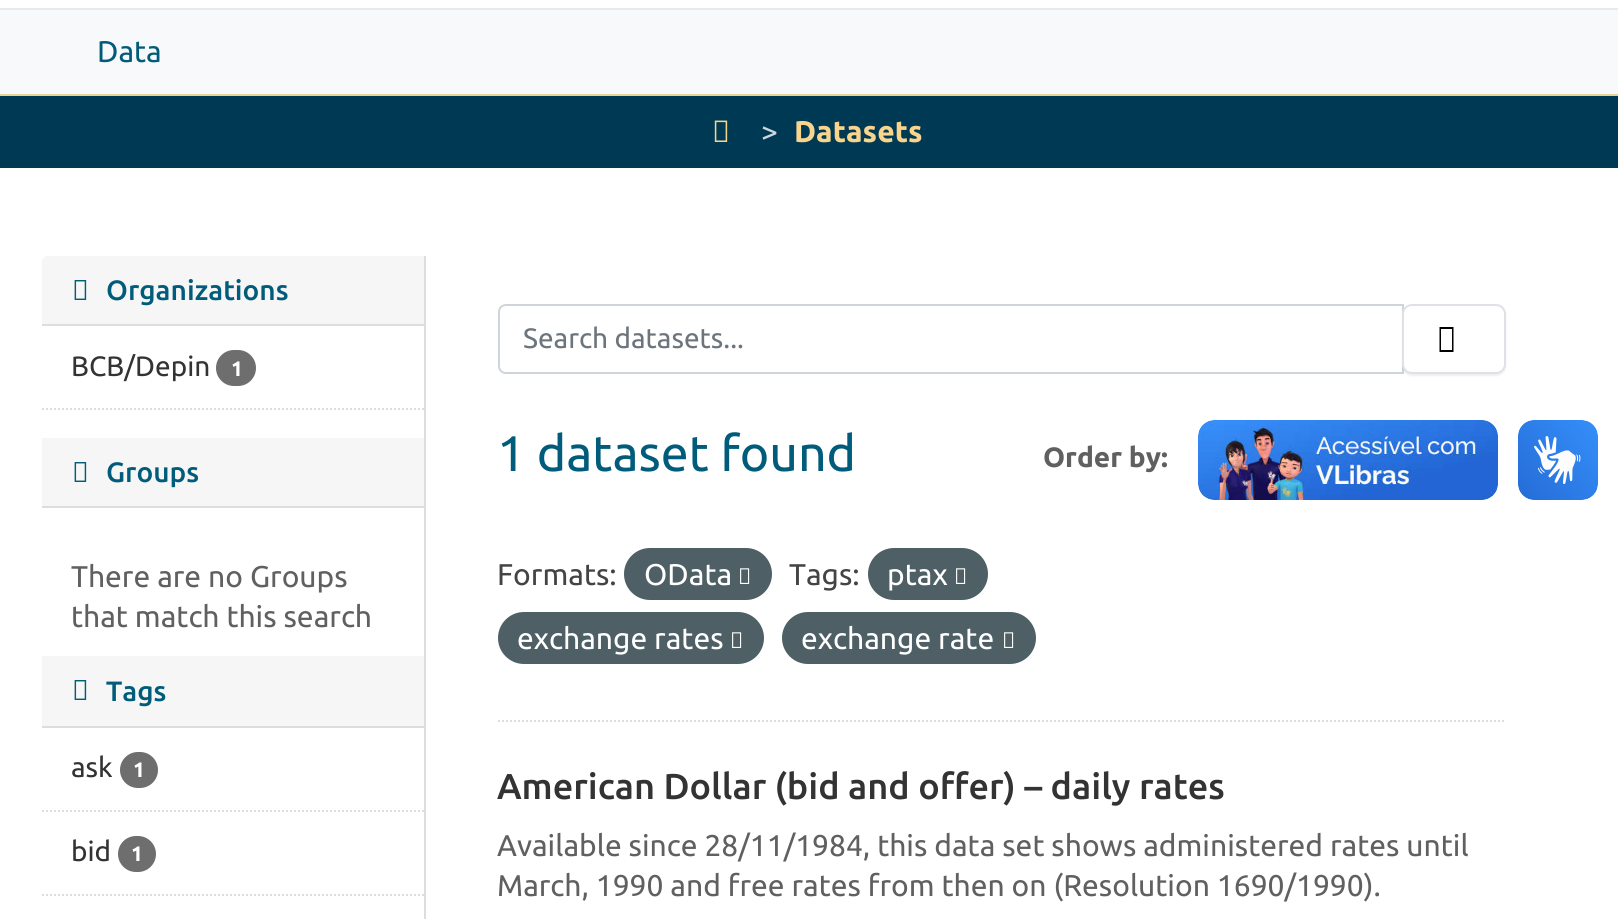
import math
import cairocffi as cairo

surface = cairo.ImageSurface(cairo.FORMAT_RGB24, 1618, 919)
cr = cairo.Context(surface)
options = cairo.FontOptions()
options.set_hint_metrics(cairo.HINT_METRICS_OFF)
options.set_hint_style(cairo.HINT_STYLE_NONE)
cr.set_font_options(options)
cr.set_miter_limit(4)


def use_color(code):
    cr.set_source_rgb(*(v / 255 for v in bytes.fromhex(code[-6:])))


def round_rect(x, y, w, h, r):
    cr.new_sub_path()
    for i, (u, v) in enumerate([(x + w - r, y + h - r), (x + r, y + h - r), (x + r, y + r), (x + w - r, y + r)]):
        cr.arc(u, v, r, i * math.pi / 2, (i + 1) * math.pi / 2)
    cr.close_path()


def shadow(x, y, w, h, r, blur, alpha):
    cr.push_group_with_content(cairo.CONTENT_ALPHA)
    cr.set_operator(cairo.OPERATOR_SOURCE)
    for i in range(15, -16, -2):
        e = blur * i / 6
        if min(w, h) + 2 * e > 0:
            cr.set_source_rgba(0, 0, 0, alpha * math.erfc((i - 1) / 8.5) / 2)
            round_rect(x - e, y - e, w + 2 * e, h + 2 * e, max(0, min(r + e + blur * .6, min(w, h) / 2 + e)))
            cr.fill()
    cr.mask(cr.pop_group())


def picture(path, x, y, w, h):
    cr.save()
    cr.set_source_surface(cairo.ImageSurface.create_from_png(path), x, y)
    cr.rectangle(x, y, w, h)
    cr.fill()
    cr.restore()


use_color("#ffffff")
cr.paint()
use_color("#f8f9fa")
cr.rectangle(0, 10, 1618, 84)
cr.fill()
use_color("#eaeaea")
cr.rectangle(0, 8, 1618, 2)
cr.fill()
use_color("#edd297")
cr.rectangle(0, 94, 1618, 2)
cr.fill()
cr.select_font_face("Ubuntu")
cr.set_font_size(30)
use_color("#005c7a")
cr.move_to(97, 62)
cr.show_text("Data")
use_color("#003954")
cr.rectangle(0, 96, 1618, 72)
cr.fill()
picture("img1.png", 714, 120, 14, 22)
use_color("#ccd7dd")
cr.move_to(761, 142)
cr.show_text(">")
cr.select_font_face("Ubuntu", cairo.FONT_SLANT_NORMAL, cairo.FONT_WEIGHT_BOLD)
use_color("#f8d48d")
cr.move_to(794, 142)
cr.show_text("Datasets")
use_color("#f6f6f6")
cr.new_path()
cr.move_to(48, 256)
cr.line_to(424, 256)
cr.line_to(424, 326)
cr.line_to(42, 326)
cr.line_to(42, 262)
cr.curve_to(42, 258.5, 44.5, 256, 48, 256)
cr.close_path()
cr.fill()
use_color("#dddddd")
cr.rectangle(42, 324, 382, 2)
cr.fill()
picture("img2.png", 74, 280, 13, 20)
cr.select_font_face("Ubuntu Medium")
cr.set_font_size(28)
use_color("#005c7a")
cr.move_to(106, 300)
cr.show_text("Organizations")
cr.select_font_face("Ubuntu")
use_color("#333333")
cr.move_to(71, 376)
cr.show_text("BCB/Depin")
use_color("#6e6e6e")
round_rect(216, 350, 40, 36, 18)
cr.fill()
cr.select_font_face("Ubuntu", cairo.FONT_SLANT_NORMAL, cairo.FONT_WEIGHT_BOLD)
cr.set_font_size(21)
use_color("#ffffff")
cr.move_to(231, 376)
cr.show_text("1")
cr.new_path()
cr.move_to(42, 409)
cr.line_to(424, 409)
use_color("#dddddd")
cr.set_dash([2, 2])
cr.stroke()
use_color("#f6f6f6")
cr.rectangle(42, 438, 382, 68)
cr.fill()
use_color("#dddddd")
cr.rectangle(42, 506, 382, 2)
cr.fill()
picture("img2.png", 74, 462, 13, 20)
cr.select_font_face("Ubuntu Medium")
cr.set_font_size(28)
use_color("#005c7a")
cr.move_to(106, 482)
cr.show_text("Groups")
cr.select_font_face("Ubuntu")
cr.set_font_size(30)
use_color("#606060")
cr.move_to(71, 587)
cr.show_text("There are no Groups")
cr.move_to(71, 627)
cr.show_text("that match this search")
use_color("#f6f6f6")
cr.rectangle(42, 656, 382, 70)
cr.fill()
use_color("#dddddd")
cr.rectangle(42, 726, 382, 2)
cr.fill()
picture("img2.png", 74, 680, 13, 20)
cr.select_font_face("Ubuntu Medium")
cr.set_font_size(28)
use_color("#005c7a")
cr.move_to(106, 701)
cr.show_text("Tags")
cr.new_path()
cr.move_to(42, 811)
cr.line_to(424, 811)
use_color("#dddddd")
cr.stroke()
cr.select_font_face("Ubuntu")
use_color("#333333")
cr.move_to(71, 777)
cr.show_text("ask")
use_color("#6e6e6e")
round_rect(120, 752, 38, 36, 18)
cr.fill()
cr.select_font_face("Ubuntu", cairo.FONT_SLANT_NORMAL, cairo.FONT_WEIGHT_BOLD)
cr.set_font_size(21)
use_color("#ffffff")
cr.move_to(133, 777)
cr.show_text("1")
cr.new_path()
cr.move_to(42, 895)
cr.line_to(424, 895)
use_color("#dddddd")
cr.stroke()
cr.select_font_face("Ubuntu")
cr.set_font_size(28)
use_color("#333333")
cr.move_to(71, 861)
cr.show_text("bid")
use_color("#6e6e6e")
round_rect(118, 836, 38, 36, 18)
cr.fill()
cr.select_font_face("Ubuntu", cairo.FONT_SLANT_NORMAL, cairo.FONT_WEIGHT_BOLD)
cr.set_font_size(21)
use_color("#ffffff")
cr.move_to(131, 861)
cr.show_text("1")
use_color("#dddddd")
cr.rectangle(424, 256, 2, 663)
cr.fill()
cr.new_path()
cr.move_to(498, 721)
cr.line_to(1506, 721)
cr.stroke()
cr.new_path()
cr.move_to(506, 305)
cr.line_to(1403, 305)
cr.line_to(1403, 373)
cr.line_to(506, 373)
cr.curve_to(502, 373, 499, 370, 499, 366)
cr.line_to(499, 312)
cr.curve_to(499, 308, 502, 305, 506, 305)
cr.close_path()
use_color("#ced4da")
cr.set_dash([])
cr.stroke()
cr.select_font_face("Ubuntu")
cr.set_font_size(28)
use_color("#6c757d")
cr.move_to(523, 348)
cr.show_text("Search datasets...")
use_color("#000000")
shadow(1402, 306, 104, 70, 10, 1, 0.07)
use_color("#ffffff")
round_rect(1403, 305, 102, 68, 9)
cr.fill_preserve()
use_color("#dee2e6")
cr.stroke()
use_color("#000000")
cr.new_path()
cr.move_to(1439.5, 352)
cr.line_to(1439.5, 327)
cr.line_to(1453.5, 327)
cr.line_to(1453.5, 352)
cr.close_path()
cr.move_to(1441, 350)
cr.line_to(1452, 350)
cr.line_to(1452, 329)
cr.line_to(1441, 329)
cr.close_path()
cr.fill()
cr.set_font_size(50)
use_color("#005c7a")
cr.move_to(497, 471)
cr.show_text("1 dataset found")
cr.select_font_face("Ubuntu", cairo.FONT_SLANT_NORMAL, cairo.FONT_WEIGHT_BOLD)
cr.set_font_size(28)
use_color("#606060")
cr.move_to(1043, 467)
cr.show_text("Order by:")
cr.select_font_face("Ubuntu")
cr.set_font_size(30)
use_color("#444444")
cr.move_to(497, 585)
cr.show_text("Formats:")
use_color("#4e5f65")
round_rect(624, 548, 148, 52, 26)
cr.fill()
use_color("#ffffff")
cr.move_to(644, 585)
cr.show_text("OData")
picture("img3.png", 740, 568, 10, 16)
use_color("#444444")
cr.move_to(789, 585)
cr.show_text("Tags:")
use_color("#4e5f65")
round_rect(868, 548, 120, 52, 26)
cr.fill()
use_color("#ffffff")
cr.move_to(887, 585)
cr.show_text("ptax")
picture("img3.png", 956, 568, 10, 16)
use_color("#4e5f65")
round_rect(498, 612, 266, 52, 26)
cr.fill()
use_color("#ffffff")
cr.move_to(517, 649)
cr.show_text("exchange rates")
picture("img3.png", 732, 632, 10, 16)
use_color("#4e5f65")
round_rect(782, 612, 254, 52, 26)
cr.fill()
use_color("#ffffff")
cr.move_to(801, 649)
cr.show_text("exchange rate")
picture("img3.png", 1004, 632, 10, 16)
cr.select_font_face("Ubuntu Medium")
cr.set_font_size(36)
use_color("#333333")
cr.move_to(497, 799)
cr.show_text("American Dollar (bid and offer) – daily rates")
cr.select_font_face("Ubuntu")
cr.set_font_size(30)
use_color("#606060")
cr.move_to(497, 856)
cr.show_text("Available since 28/11/1984, this data set shows administered rates until")
cr.move_to(497, 896)
cr.show_text("March, 1990 and free rates from then on (Resolution 1690/1990).")
picture("img4.png", 1198, 420, 300, 80)
picture("img5.png", 1518, 420, 80, 80)
surface.write_to_png("result.png")
